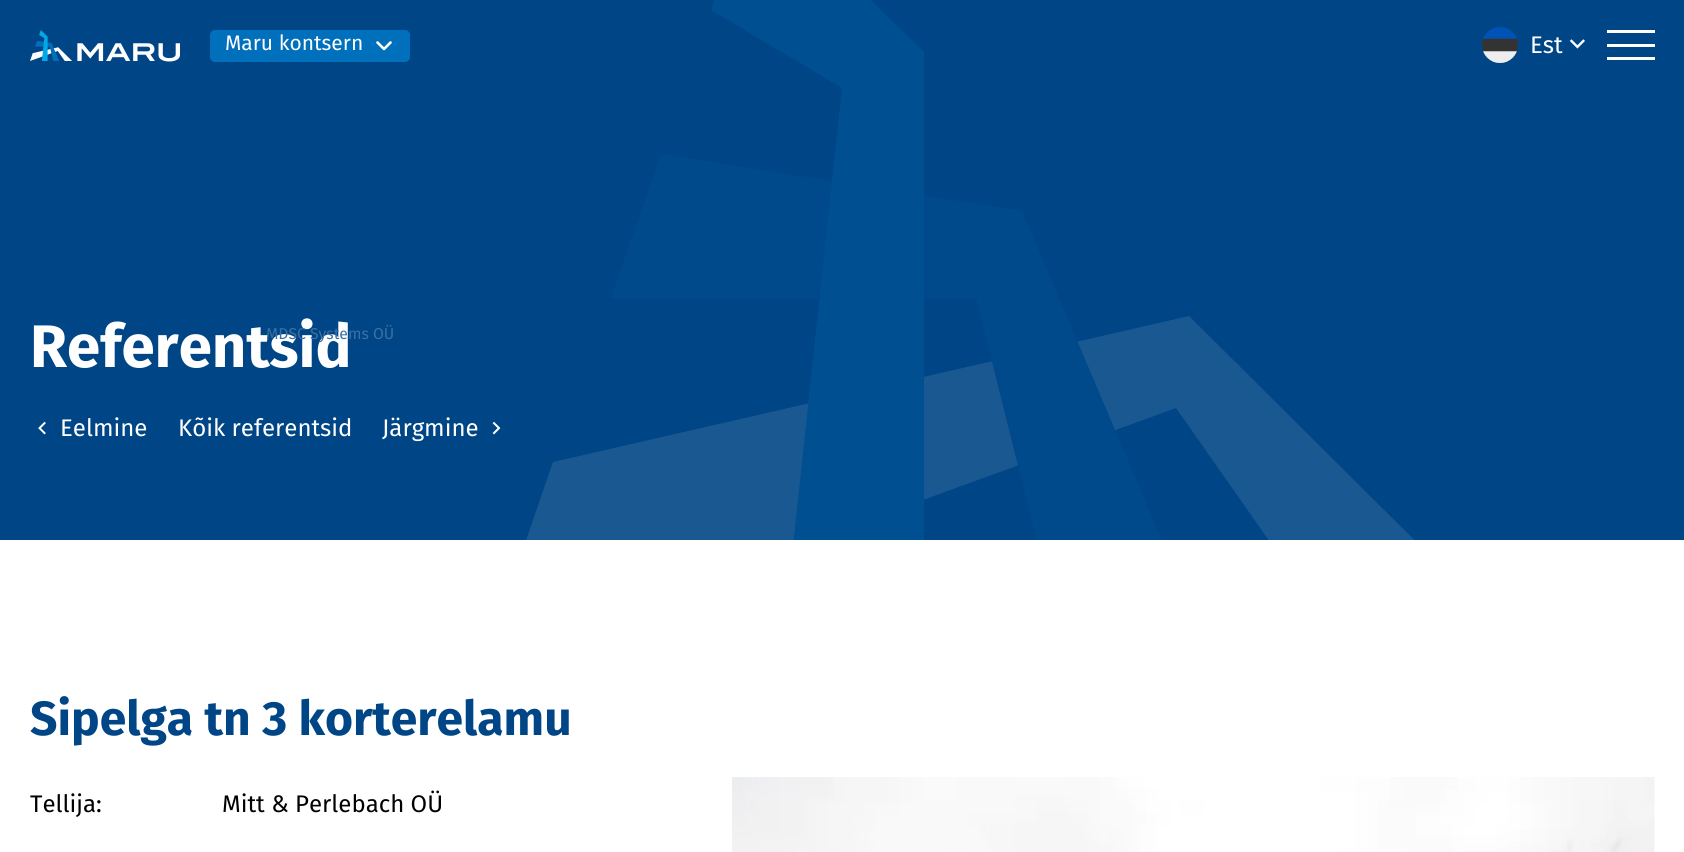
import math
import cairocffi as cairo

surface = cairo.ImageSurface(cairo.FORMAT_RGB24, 1684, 852)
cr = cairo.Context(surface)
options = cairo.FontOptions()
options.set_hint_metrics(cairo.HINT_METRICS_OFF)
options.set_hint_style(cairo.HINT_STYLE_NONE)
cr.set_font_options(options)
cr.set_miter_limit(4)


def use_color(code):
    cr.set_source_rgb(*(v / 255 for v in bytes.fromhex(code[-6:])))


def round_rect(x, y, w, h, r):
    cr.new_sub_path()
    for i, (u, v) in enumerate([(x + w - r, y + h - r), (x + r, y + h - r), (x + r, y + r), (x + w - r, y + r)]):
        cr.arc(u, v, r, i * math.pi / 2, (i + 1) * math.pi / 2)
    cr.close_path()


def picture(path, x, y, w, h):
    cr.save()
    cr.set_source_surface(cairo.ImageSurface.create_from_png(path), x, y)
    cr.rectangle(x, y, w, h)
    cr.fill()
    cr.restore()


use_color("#ffffff")
cr.paint()
use_color("#004586")
cr.rectangle(0, 0, 1684, 540)
cr.fill()
picture("img1.png", 30, 30, 150, 32)
use_color("#0070bc")
round_rect(211, 31, 198, 30, 4)
cr.fill_preserve()
cr.stroke()
cr.select_font_face("Fira Sans")
cr.set_font_size(21)
use_color("#ffffff")
cr.move_to(225, 50)
cr.show_text("Maru kontsern")
cr.new_path()
cr.move_to(377.5, 42.5)
cr.line_to(384, 49)
cr.line_to(390.5, 42.5)
cr.set_line_width(2.6)
cr.set_line_cap(cairo.LINE_CAP_ROUND)
cr.set_line_join(cairo.LINE_JOIN_ROUND)
cr.stroke()
cr.select_font_face("Fira Sans", cairo.FONT_SLANT_NORMAL, cairo.FONT_WEIGHT_BOLD)
cr.set_font_size(60)
cr.move_to(30, 367)
cr.show_text("Referentsid")
cr.select_font_face("Fira Sans")
cr.set_font_size(15.75)
use_color("#3b70a2")
cr.move_to(266, 339)
cr.show_text("MDSC Systems OÜ")
picture("img2.png", 1482, 27, 36, 36)
cr.set_font_size(24)
use_color("#ffffff")
cr.move_to(1530, 53)
cr.show_text("Est")
picture("img3.png", 1569, 39, 16, 10)
cr.rectangle(1607, 30, 48, 3)
cr.fill()
cr.rectangle(1607, 44, 48, 3)
cr.fill()
cr.rectangle(1607, 57, 48, 3)
cr.fill()
picture("img4.png", 38, 421, 8, 14)
cr.move_to(60, 436)
cr.show_text("Eelmine")
cr.move_to(178, 436)
cr.show_text("Kõik referentsid")
cr.move_to(382, 436)
cr.show_text("Järgmine")
picture("img5.png", 492, 421, 9, 14)
cr.save()
cr.rectangle(485, 0, 1050, 540)
cr.clip()
use_color("#1a5892")
cr.new_path()
cr.move_to(553, 462)
cr.line_to(485, 659)
cr.line_to(1176, 408)
cr.line_to(1352, 659)
cr.line_to(1534, 659)
cr.line_to(1189, 316)
cr.close_path()
cr.fill()
use_color("#00498b")
cr.set_fill_rule(cairo.FILL_RULE_EVEN_ODD)
cr.new_path()
cr.move_to(976, 298)
cr.line_to(1066, 658)
cr.line_to(1212, 658)
cr.line_to(1022, 211)
cr.line_to(661, 154)
cr.line_to(611, 298)
cr.close_path()
cr.fill()
use_color("#004f90")
cr.set_fill_rule(cairo.FILL_RULE_WINDING)
cr.new_path()
cr.move_to(755, -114)
cr.line_to(711, 10)
cr.line_to(842, 88)
cr.line_to(781, 658)
cr.line_to(924, 658)
cr.line_to(924, 52)
cr.close_path()
cr.fill()
cr.restore()
cr.select_font_face("Fira Sans", cairo.FONT_SLANT_NORMAL, cairo.FONT_WEIGHT_BOLD)
cr.set_font_size(48)
use_color("#004586")
cr.move_to(30, 735)
cr.show_text("Sipelga tn 3 korterelamu")
cr.select_font_face("Fira Sans")
cr.set_font_size(24)
use_color("#000000")
cr.move_to(30, 812)
cr.show_text("Tellija:")
cr.move_to(222, 812)
cr.show_text("Mitt & Perlebach OÜ")
picture("img6.png", 732, 777, 923, 75)
surface.write_to_png("result.png")
